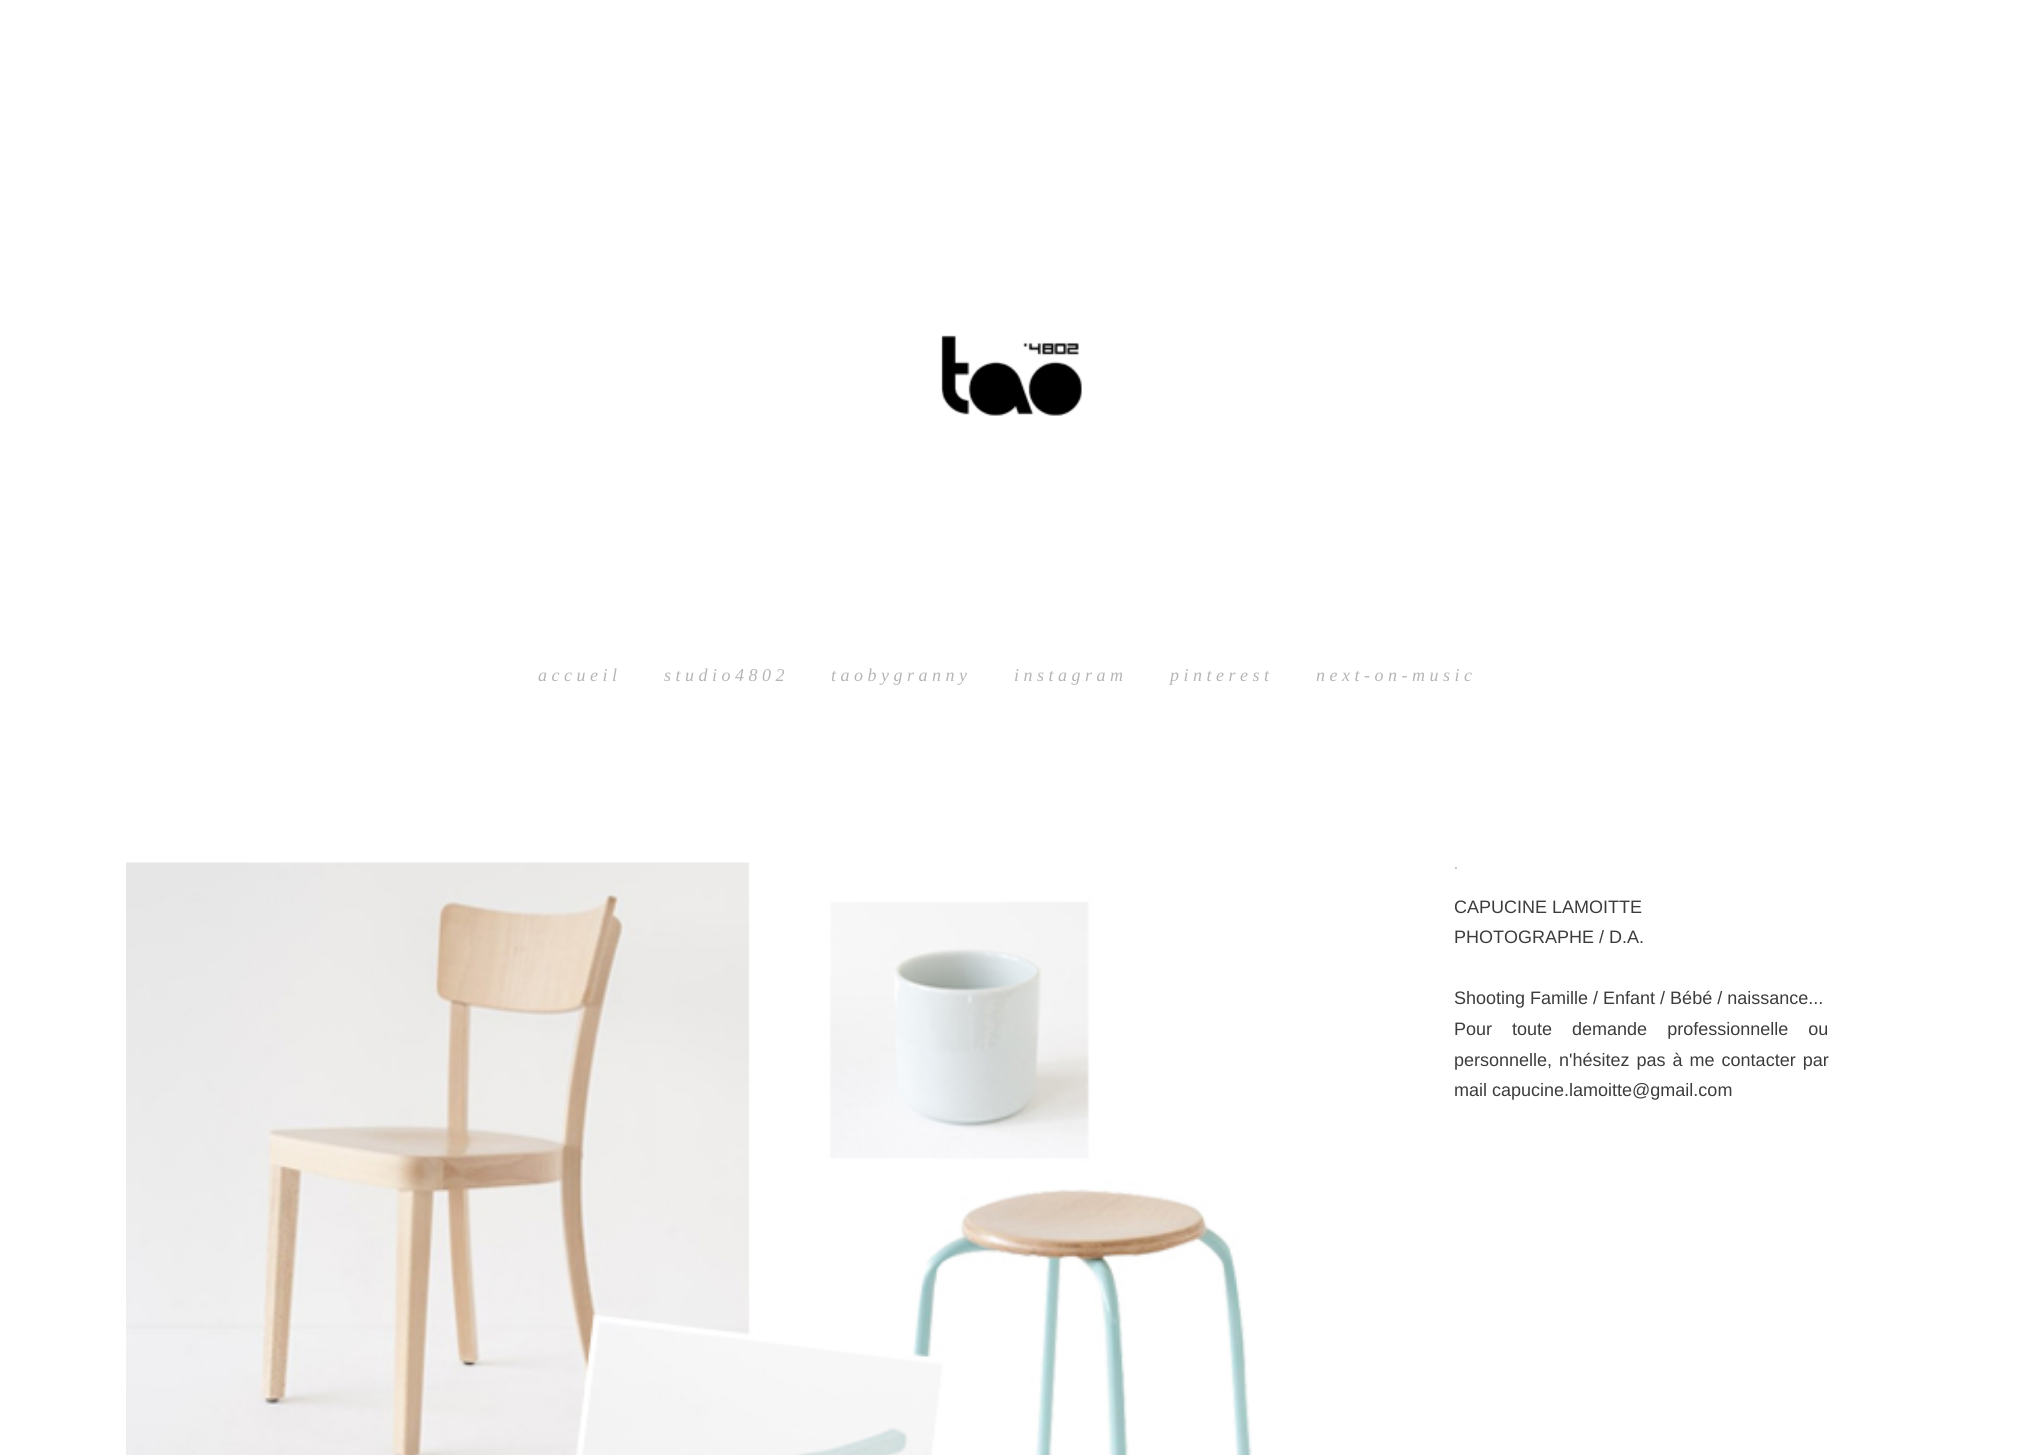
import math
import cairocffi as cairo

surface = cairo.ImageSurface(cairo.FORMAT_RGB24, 2021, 1455)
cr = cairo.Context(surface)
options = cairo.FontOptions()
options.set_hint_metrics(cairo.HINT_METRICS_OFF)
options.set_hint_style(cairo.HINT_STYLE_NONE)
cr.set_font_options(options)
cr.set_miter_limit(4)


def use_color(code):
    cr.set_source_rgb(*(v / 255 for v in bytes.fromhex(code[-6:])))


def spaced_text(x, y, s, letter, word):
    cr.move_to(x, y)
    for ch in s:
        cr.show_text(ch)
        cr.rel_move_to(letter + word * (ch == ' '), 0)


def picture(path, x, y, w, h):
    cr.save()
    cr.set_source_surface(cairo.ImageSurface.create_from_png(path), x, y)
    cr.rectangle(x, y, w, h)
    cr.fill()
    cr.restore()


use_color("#ffffff")
cr.paint()
picture("img1.png", 941, 335, 141, 81)
cr.select_font_face("Liberation Serif", cairo.FONT_SLANT_ITALIC)
cr.set_font_size(18)
use_color("#b5b5b5")
spaced_text(538, 681, "accueil", 4.5, 0)
spaced_text(664, 681, "studio4802", 4.5, 0)
spaced_text(831, 681, "taobygranny", 4.5, 0)
spaced_text(1014, 681, "instagram", 4.5, 0)
spaced_text(1170, 681, "pinterest", 4.5, 0)
spaced_text(1316, 681, "next-on-music", 4.5, 0)
picture("img2.png", 126, 862, 1126, 593)
cr.select_font_face("Liberation Sans", cairo.FONT_SLANT_NORMAL, cairo.FONT_WEIGHT_BOLD)
cr.set_font_size(14)
use_color("#cec9c9")
spaced_text(1454, 869, ".", 4.5, 0)
cr.select_font_face("Liberation Sans")
cr.set_font_size(18)
use_color("#3c3c3c")
cr.move_to(1454, 913)
cr.show_text("CAPUCINE LAMOITTE")
cr.move_to(1454, 943)
cr.show_text("PHOTOGRAPHE / D.A.")
cr.move_to(1454, 1004)
cr.show_text("Shooting Famille / Enfant / Bébé / naissance...")
spaced_text(1454, 1035, "Pour toute demande professionnelle ou", 0, 15)
spaced_text(1454, 1066, "personnelle, n'hésitez pas à me contacter par", 0, 2)
cr.move_to(1454, 1096)
cr.show_text("mail capucine.lamoitte@gmail.com")
surface.write_to_png("result.png")
